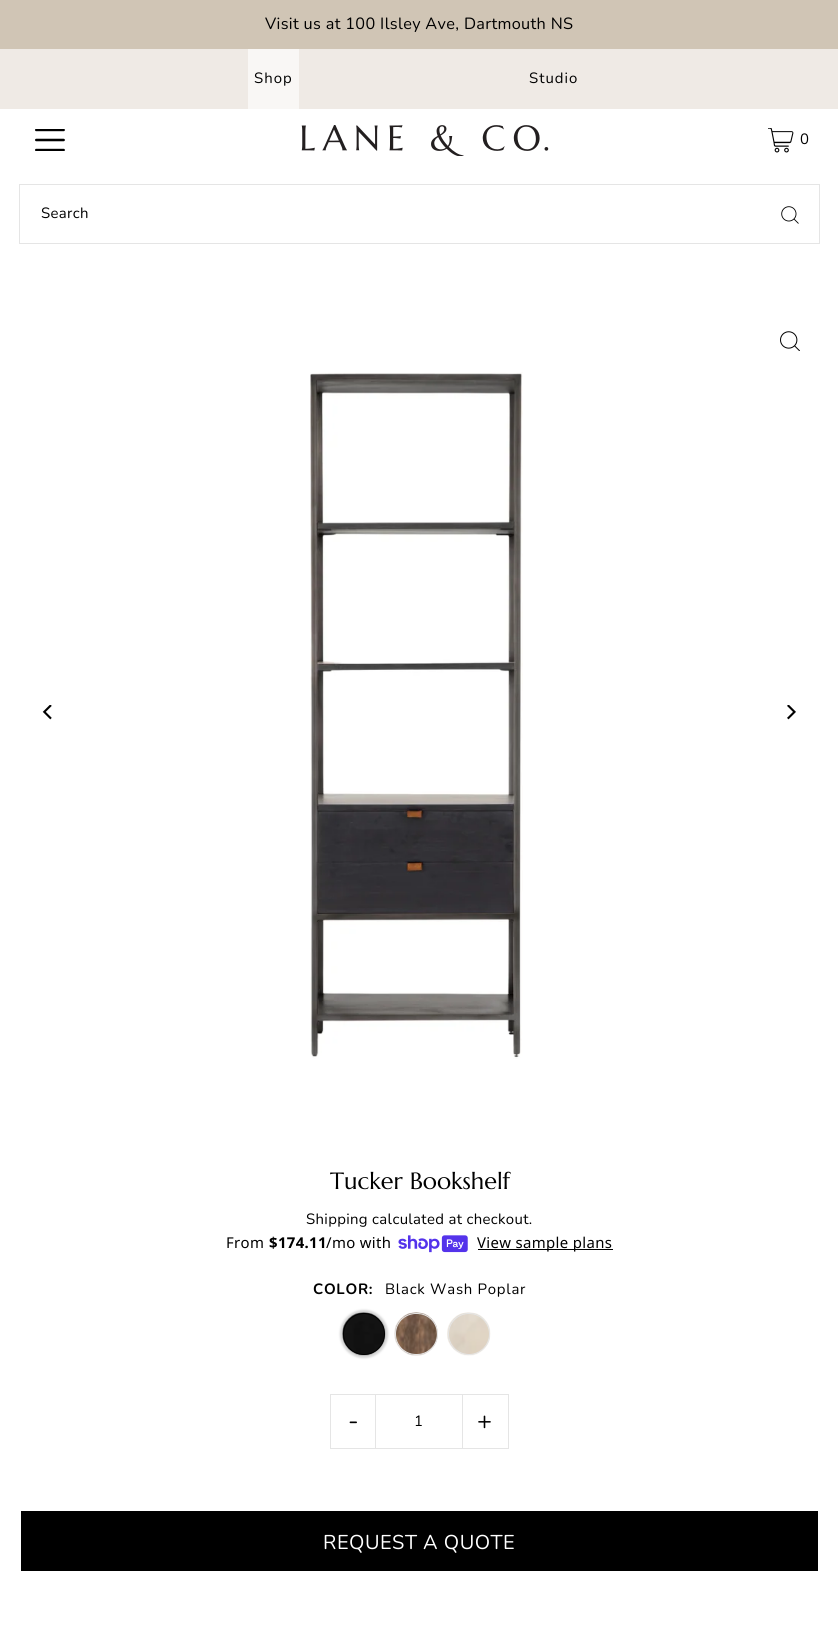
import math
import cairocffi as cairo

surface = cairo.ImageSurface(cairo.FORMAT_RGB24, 838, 1632)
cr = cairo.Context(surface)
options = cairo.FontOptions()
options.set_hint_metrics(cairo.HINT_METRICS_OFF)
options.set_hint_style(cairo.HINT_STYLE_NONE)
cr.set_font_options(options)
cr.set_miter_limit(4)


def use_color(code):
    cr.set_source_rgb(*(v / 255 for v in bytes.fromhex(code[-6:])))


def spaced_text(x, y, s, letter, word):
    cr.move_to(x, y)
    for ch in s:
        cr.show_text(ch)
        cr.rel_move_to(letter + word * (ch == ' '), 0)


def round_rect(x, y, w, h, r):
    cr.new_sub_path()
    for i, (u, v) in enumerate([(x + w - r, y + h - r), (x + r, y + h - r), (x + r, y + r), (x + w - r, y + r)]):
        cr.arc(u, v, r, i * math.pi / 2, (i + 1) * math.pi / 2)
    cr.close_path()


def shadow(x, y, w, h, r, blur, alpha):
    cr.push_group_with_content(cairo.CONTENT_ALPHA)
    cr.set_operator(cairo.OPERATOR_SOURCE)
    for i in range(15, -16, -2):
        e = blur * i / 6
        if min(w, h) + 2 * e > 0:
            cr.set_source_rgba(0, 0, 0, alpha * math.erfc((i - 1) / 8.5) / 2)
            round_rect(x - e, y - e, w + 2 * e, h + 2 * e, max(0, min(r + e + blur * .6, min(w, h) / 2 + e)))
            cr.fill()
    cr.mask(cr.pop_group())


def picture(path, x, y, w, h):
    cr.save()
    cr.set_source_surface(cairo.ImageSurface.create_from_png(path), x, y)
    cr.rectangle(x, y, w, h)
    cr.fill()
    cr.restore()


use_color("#ffffff")
cr.paint()
use_color("#d0c5b5")
cr.rectangle(0, 0, 838, 49)
cr.fill()
cr.select_font_face("Nunito")
cr.set_font_size(16.25)
use_color("#000000")
spaced_text(265, 29, "Visit us at 100 Ilsley Ave, Dartmouth NS", 0.35, 0)
use_color("#efeae5")
cr.rectangle(0, 49, 838, 60)
cr.fill()
use_color("#f9f7f5")
cr.rectangle(248, 49, 51, 60)
cr.fill()
cr.set_font_size(14.9)
use_color("#000000")
spaced_text(254, 83, "Shop", 1, 0)
spaced_text(529, 83, "Studio", 1, 0)
picture("img1.png", 35, 129, 30, 22)
picture("img2.png", 301, 125, 248, 31)
picture("img3.png", 768, 128, 26, 25)
spaced_text(800, 144, "0", 0.35, 0)
cr.rectangle(19.5, 184.5, 800, 59)
use_color("#e5e5e5")
cr.set_line_width(1)
cr.stroke()
use_color("#000000")
spaced_text(41, 218, "Search", 0.35, 0)
picture("img4.png", 781, 206, 18, 18)
picture("img5.png", 42, 705, 10, 15)
picture("img6.png", 780, 331, 20, 20)
picture("img7.png", 310, 372, 213, 687)
picture("img8.png", 787, 705, 9, 15)
cr.select_font_face("Marcellus")
cr.set_font_size(23.5)
cr.move_to(330, 1189)
cr.show_text("Tucker Bookshelf")
cr.select_font_face("Nunito")
cr.set_font_size(14.9)
spaced_text(306, 1224, "Shipping calculated at checkout.", 0.35, 0)
cr.select_font_face("Noto Sans")
spaced_text(226, 1248, "From", 0.35, 0)
cr.select_font_face("Noto Sans", cairo.FONT_SLANT_NORMAL, cairo.FONT_WEIGHT_BOLD)
spaced_text(269, 1248, "$174.11", 0.35, 0)
cr.select_font_face("Noto Sans")
spaced_text(326, 1248, "/mo with", 0.35, 0)
picture("img9.png", 398, 1235, 70, 18)
cr.rectangle(478, 1249, 135, 1)
cr.fill()
spaced_text(477, 1248, "View sample plans", 0.35, 0)
cr.select_font_face("Nunito", cairo.FONT_SLANT_NORMAL, cairo.FONT_WEIGHT_BOLD)
spaced_text(313, 1294, "COLOR:", 0.75, 0)
cr.select_font_face("Nunito")
spaced_text(385, 1294, "Black Wash Poplar", 0.75, 0)
use_color("#d6d6d6")
shadow(340, 1310, 48, 48, 24, 1, 1)
picture("img10.png", 342, 1312, 44, 44)
cr.arc(364, 1334, 20.5, 0, 2 * math.pi)
use_color("#000000")
cr.stroke()
picture("img11.png", 394, 1312, 44, 44)
round_rect(395.5, 1313.5, 42, 41, 20.5)
use_color("#e5e5e5")
cr.stroke()
picture("img12.png", 447, 1312, 44, 44)
cr.arc(469, 1334, 20.5, 0, 2 * math.pi)
cr.stroke()
cr.rectangle(330, 1394, 48, 1)
cr.fill()
cr.rectangle(330, 1448, 48, 1)
cr.fill()
cr.rectangle(330, 1394, 1, 55)
cr.fill()
cr.set_font_size(25)
use_color("#000000")
spaced_text(348, 1429, "-", 1, 0)
cr.rectangle(375.5, 1394.5, 87, 54)
use_color("#e5e5e5")
cr.stroke()
cr.set_font_size(14.9)
use_color("#000000")
spaced_text(414, 1426, "1", 0.35, 0)
use_color("#e5e5e5")
cr.rectangle(461, 1394, 48, 1)
cr.fill()
cr.rectangle(508, 1394, 1, 55)
cr.fill()
cr.rectangle(461, 1448, 48, 1)
cr.fill()
cr.set_font_size(25)
use_color("#000000")
spaced_text(477, 1429, "+", 1, 0)
cr.rectangle(21, 1511, 797, 60)
cr.fill()
cr.set_font_size(20)
use_color("#ffffff")
spaced_text(323, 1549, "REQUEST A QUOTE", 0.5, 0)
surface.write_to_png("result.png")
